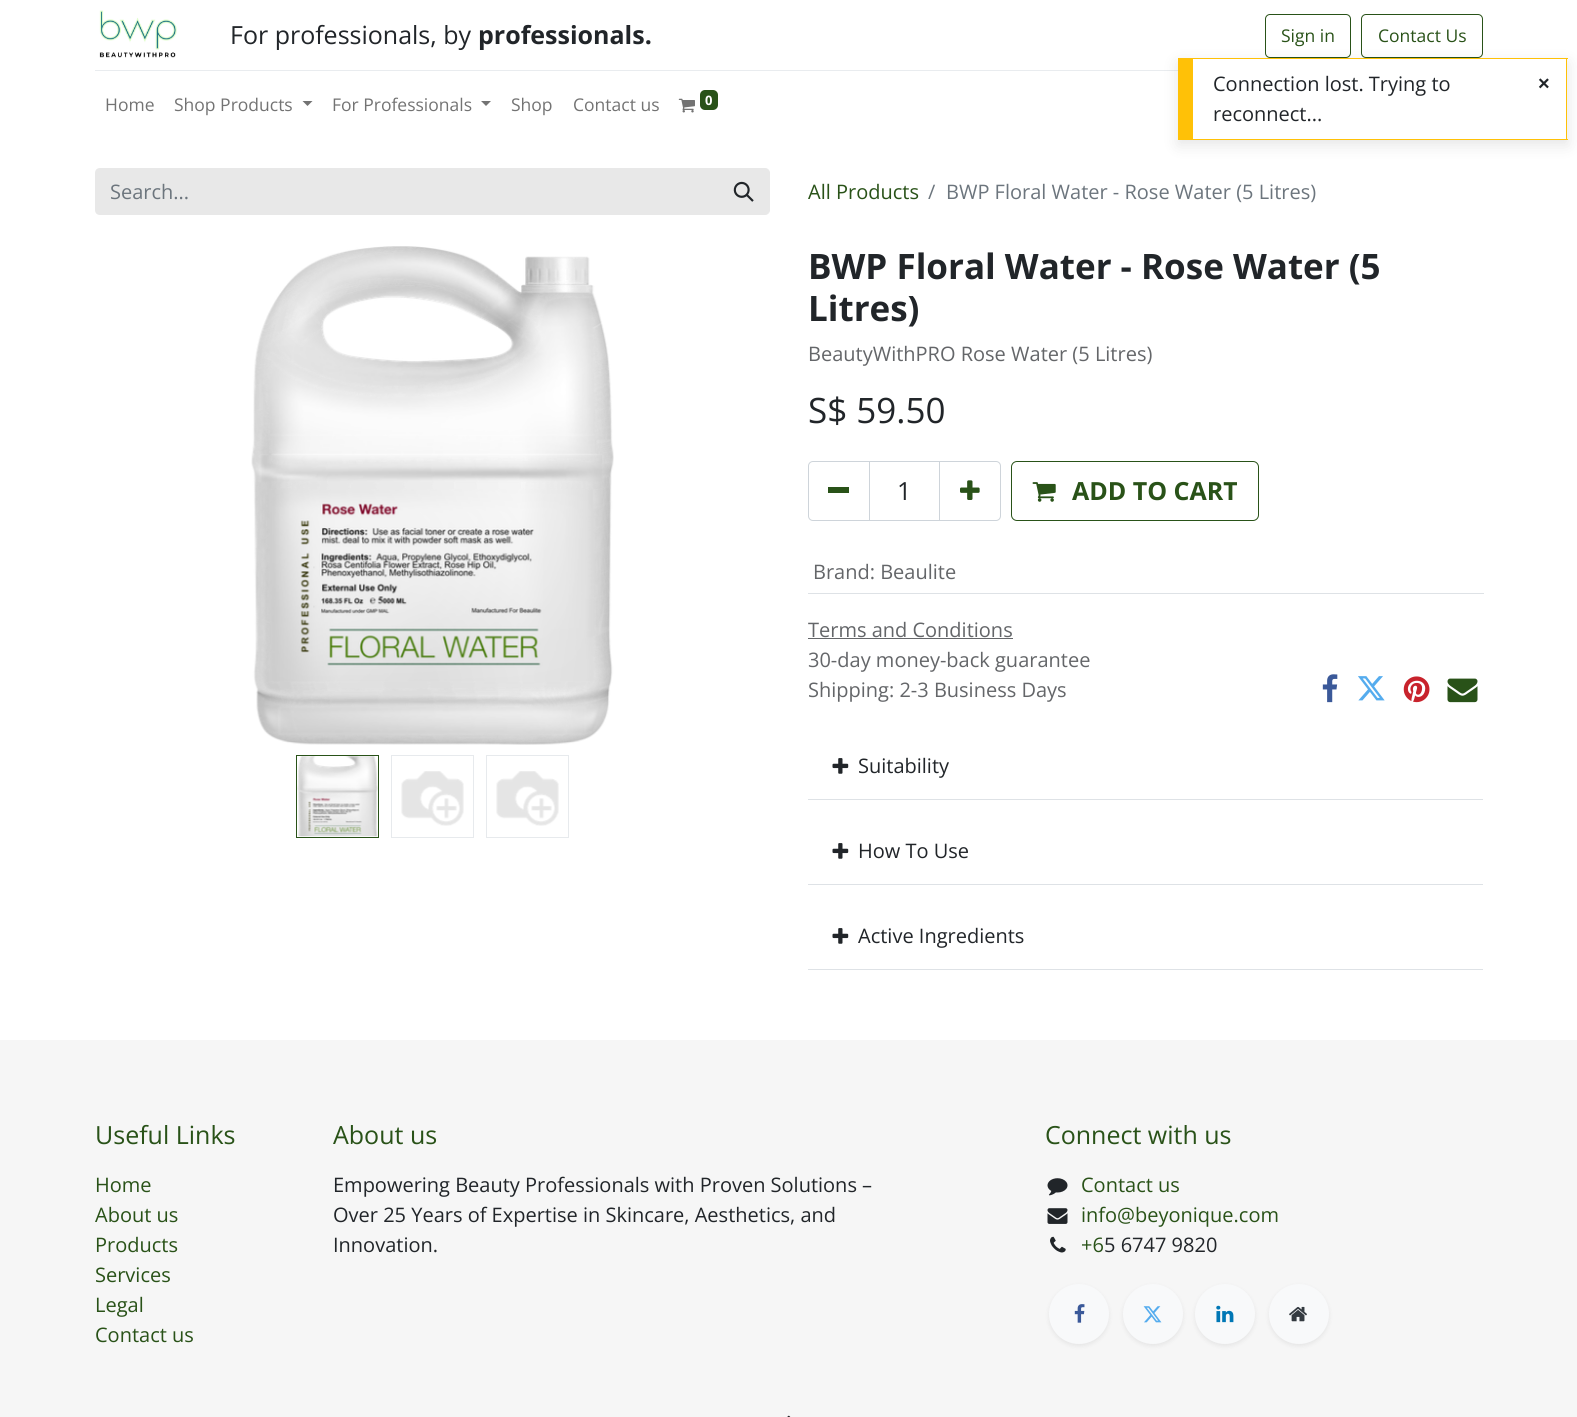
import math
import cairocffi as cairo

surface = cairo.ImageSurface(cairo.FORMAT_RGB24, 1577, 1417)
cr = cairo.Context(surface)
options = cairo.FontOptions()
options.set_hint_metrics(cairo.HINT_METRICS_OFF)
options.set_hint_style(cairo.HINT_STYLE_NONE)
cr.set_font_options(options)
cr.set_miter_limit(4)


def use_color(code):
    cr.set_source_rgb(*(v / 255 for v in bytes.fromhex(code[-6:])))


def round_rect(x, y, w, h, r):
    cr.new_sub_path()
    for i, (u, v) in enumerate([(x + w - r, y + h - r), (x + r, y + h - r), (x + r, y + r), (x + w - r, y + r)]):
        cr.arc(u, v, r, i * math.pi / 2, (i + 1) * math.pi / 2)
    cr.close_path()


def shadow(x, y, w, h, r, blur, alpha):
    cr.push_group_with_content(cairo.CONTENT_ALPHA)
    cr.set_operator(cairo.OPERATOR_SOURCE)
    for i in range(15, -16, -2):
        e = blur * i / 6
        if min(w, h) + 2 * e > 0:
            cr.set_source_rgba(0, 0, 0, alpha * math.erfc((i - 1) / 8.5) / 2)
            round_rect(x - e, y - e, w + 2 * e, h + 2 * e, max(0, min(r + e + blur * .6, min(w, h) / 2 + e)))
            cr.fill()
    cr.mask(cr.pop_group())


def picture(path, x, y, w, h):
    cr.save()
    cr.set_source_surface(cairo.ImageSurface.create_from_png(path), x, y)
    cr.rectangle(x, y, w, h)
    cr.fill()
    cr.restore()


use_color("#ffffff")
cr.paint()
picture("img1.png", 99, 10, 78, 48)
cr.select_font_face("Open Sans")
cr.set_font_size(25)
use_color("#212529")
cr.move_to(230, 44)
cr.show_text("For professionals, by")
cr.select_font_face("Open Sans", cairo.FONT_SLANT_NORMAL, cairo.FONT_WEIGHT_BOLD)
cr.move_to(478, 44)
cr.show_text("professionals.")
round_rect(1265.5, 14.5, 85, 43, 4.5)
use_color("#295218")
cr.set_line_width(1)
cr.stroke()
cr.select_font_face("Open Sans")
cr.set_font_size(17.5)
cr.move_to(1281, 42)
cr.show_text("Sign in")
round_rect(1361.5, 14.5, 121, 43, 4.5)
cr.stroke()
cr.move_to(1378, 42)
cr.show_text("Contact Us")
use_color("#e9ecef")
cr.rectangle(95, 70, 1083, 1)
cr.fill()
use_color("#737373")
cr.move_to(105, 111)
cr.show_text("Home")
cr.move_to(174, 111)
cr.show_text("Shop Products")
cr.new_path()
cr.move_to(302.5, 101)
cr.line_to(312.5, 101)
cr.line_to(307.5, 106)
cr.close_path()
cr.fill()
cr.move_to(332, 111)
cr.show_text("For Professionals")
cr.new_path()
cr.move_to(481, 101)
cr.line_to(491, 101)
cr.line_to(486, 106)
cr.close_path()
cr.fill()
cr.move_to(511, 111)
cr.show_text("Shop")
cr.move_to(573, 111)
cr.show_text("Contact us")
picture("img2.png", 678, 98, 17, 15)
use_color("#295218")
round_rect(700, 90, 18, 20, 5)
cr.fill()
cr.select_font_face("Open Sans", cairo.FONT_SLANT_NORMAL, cairo.FONT_WEIGHT_BOLD)
cr.set_font_size(13)
use_color("#ffffff")
cr.move_to(705, 105)
cr.show_text("0")
use_color("#e8e8e8")
cr.new_path()
cr.move_to(100, 168)
cr.line_to(719, 168)
cr.line_to(719, 215)
cr.line_to(100, 215)
cr.curve_to(97, 215, 95, 213, 95, 210)
cr.line_to(95, 173)
cr.curve_to(95, 170, 97, 168, 100, 168)
cr.close_path()
cr.fill()
cr.select_font_face("Open Sans")
cr.set_font_size(20)
use_color("#6c757d")
cr.move_to(110, 199)
cr.show_text("Search...")
use_color("#e8e8e8")
cr.new_path()
cr.move_to(718.5, 168.5)
cr.line_to(765, 168.5)
cr.curve_to(767.5, 168.5, 769.5, 170.5, 769.5, 173)
cr.line_to(769.5, 210)
cr.curve_to(769.5, 212.5, 767.5, 214.5, 765, 214.5)
cr.line_to(718.5, 214.5)
cr.close_path()
cr.fill_preserve()
cr.stroke()
picture("img3.png", 733, 181, 21, 21)
use_color("#295218")
cr.move_to(808, 199)
cr.show_text("All Products")
use_color("#6c757d")
cr.move_to(928, 199)
cr.show_text("/")
cr.move_to(946, 199)
cr.show_text("BWP Floral Water - Rose Water (5 Litres)")
picture("img4.png", 251, 246, 363, 499)
cr.rectangle(296.5, 755.5, 82, 82)
use_color("#295218")
cr.stroke()
picture("img5.png", 297, 756, 81, 81)
cr.rectangle(391.5, 755.5, 82, 82)
use_color("#e7eaed")
cr.stroke()
picture("img6.png", 401, 771, 63, 55)
cr.rectangle(486.5, 755.5, 82, 82)
cr.stroke()
picture("img6.png", 496, 771, 63, 55)
cr.select_font_face("Open Sans", cairo.FONT_SLANT_NORMAL, cairo.FONT_WEIGHT_BOLD)
cr.set_font_size(35)
use_color("#212529")
cr.move_to(808, 279)
cr.show_text("BWP Floral Water - Rose Water (5")
cr.move_to(808, 321)
cr.show_text("Litres)")
cr.select_font_face("Open Sans")
cr.set_font_size(20)
use_color("#646669")
cr.move_to(808, 361)
cr.show_text("BeautyWithPRO Rose Water (5 Litres)")
cr.set_font_size(35)
use_color("#212529")
cr.move_to(808, 423)
cr.show_text("S$ 59.50")
cr.rectangle(869.5, 461.5, 70, 59)
use_color("#ced4da")
cr.stroke()
cr.new_path()
cr.move_to(813, 461.5)
cr.line_to(869.5, 461.5)
cr.line_to(869.5, 520.5)
cr.line_to(813, 520.5)
cr.curve_to(810.5, 520.5, 808.5, 518.5, 808.5, 516)
cr.line_to(808.5, 466)
cr.curve_to(808.5, 463.5, 810.5, 461.5, 813, 461.5)
cr.close_path()
cr.stroke()
use_color("#295218")
cr.rectangle(828, 487, 21, 6)
cr.fill()
cr.set_font_size(25)
use_color("#212529")
cr.move_to(897, 500)
cr.show_text("1")
cr.new_path()
cr.move_to(939.5, 461.5)
cr.line_to(996, 461.5)
cr.curve_to(998.5, 461.5, 1000.5, 463.5, 1000.5, 466)
cr.line_to(1000.5, 516)
cr.curve_to(1000.5, 518.5, 998.5, 520.5, 996, 520.5)
cr.line_to(939.5, 520.5)
cr.close_path()
use_color("#ced4da")
cr.stroke()
picture("img7.png", 960, 480, 20, 20)
round_rect(1011.5, 461.5, 247, 59, 5.5)
use_color("#295218")
cr.stroke()
picture("img8.png", 1032, 482, 24, 20)
cr.select_font_face("Open Sans", cairo.FONT_SLANT_NORMAL, cairo.FONT_WEIGHT_BOLD)
cr.move_to(1072, 500)
cr.show_text("ADD TO CART")
use_color("#dee2e6")
cr.rectangle(808, 593, 676, 1)
cr.fill()
cr.select_font_face("Open Sans")
cr.set_font_size(20)
use_color("#646669")
cr.move_to(813, 579)
cr.show_text("Brand: Beaulite")
cr.move_to(808, 637)
cr.show_text("Terms and Conditions")
cr.rectangle(808, 638, 205, 1)
cr.fill()
cr.move_to(808, 667)
cr.show_text("30-day money-back guarantee")
cr.move_to(808, 697)
cr.show_text("Shipping: 2-3 Business Days")
picture("img9.png", 1322, 674, 16, 29)
picture("img10.png", 1358, 676, 27, 25)
picture("img11.png", 1403, 676, 27, 27)
picture("img12.png", 1447, 678, 31, 25)
use_color("#dee2e6")
cr.rectangle(808, 799, 675, 1)
cr.fill()
picture("img13.png", 832, 758, 17, 16)
use_color("#212529")
cr.move_to(858, 773)
cr.show_text("Suitability")
use_color("#dee2e6")
cr.rectangle(808, 884, 675, 1)
cr.fill()
picture("img13.png", 832, 843, 17, 16)
use_color("#212529")
cr.move_to(858, 858)
cr.show_text("How To Use")
use_color("#dee2e6")
cr.rectangle(808, 969, 675, 1)
cr.fill()
picture("img13.png", 832, 928, 17, 16)
use_color("#212529")
cr.move_to(858, 943)
cr.show_text("Active Ingredients")
use_color("#f6f6f6")
cr.rectangle(0, 1040, 1577, 377)
cr.fill()
cr.set_font_size(25)
use_color("#295218")
cr.move_to(95, 1144)
cr.show_text("Useful Links")
cr.set_font_size(20)
cr.move_to(95, 1192)
cr.show_text("Home")
cr.move_to(95, 1222)
cr.show_text("About us")
cr.move_to(95, 1252)
cr.show_text("Products")
cr.move_to(95, 1282)
cr.show_text("Services")
cr.move_to(95, 1312)
cr.show_text("Legal")
cr.move_to(95, 1342)
cr.show_text("Contact us")
cr.set_font_size(25)
cr.move_to(333, 1144)
cr.show_text("About us")
cr.set_font_size(20)
use_color("#212529")
cr.move_to(333, 1192)
cr.show_text("Empowering Beauty Professionals with Proven Solutions –")
cr.move_to(333, 1222)
cr.show_text("Over 25 Years of Expertise in Skincare, Aesthetics, and")
cr.move_to(333, 1252)
cr.show_text("Innovation.")
cr.set_font_size(25)
use_color("#295218")
cr.move_to(1045, 1144)
cr.show_text("Connect with us")
picture("img14.png", 1047, 1178, 21, 18)
cr.set_font_size(20)
cr.move_to(1081, 1192)
cr.show_text("Contact us")
picture("img15.png", 1047, 1208, 21, 16)
cr.move_to(1081, 1222)
cr.show_text("info@beyonique.com")
picture("img16.png", 1050, 1236, 16, 17)
cr.move_to(1081, 1252)
cr.show_text("+6")
use_color("#212529")
cr.move_to(1104, 1252)
cr.show_text("5 6747 9820")
use_color("#000000")
shadow(1049, 1286, 60, 60, 30, 2.5, 0.07)
use_color("#f8f9fa")
cr.arc(1079, 1314, 30, 0, 2 * math.pi)
cr.fill()
picture("img17.png", 1074, 1304, 11, 19)
use_color("#000000")
shadow(1123, 1286, 60, 60, 30, 2.5, 0.07)
use_color("#f8f9fa")
cr.arc(1153, 1314, 30, 0, 2 * math.pi)
cr.fill()
picture("img18.png", 1143, 1306, 19, 17)
use_color("#000000")
shadow(1195, 1286, 60, 60, 30, 2.5, 0.07)
use_color("#f8f9fa")
cr.arc(1225, 1314, 30, 0, 2 * math.pi)
cr.fill()
picture("img19.png", 1216, 1305, 18, 18)
use_color("#000000")
shadow(1269, 1286, 60, 60, 30, 2.5, 0.07)
use_color("#f8f9fa")
cr.arc(1299, 1314, 30, 0, 2 * math.pi)
cr.fill()
picture("img20.png", 1289, 1306, 18, 16)
picture("img21.png", 787, 1415, 4, 2)
use_color("#000000")
shadow(1178, 63, 390, 82, 0, 7.5, 0.1)
use_color("#ffffff")
cr.rectangle(1193, 59, 373, 80)
cr.fill()
use_color("#ffc107")
cr.rectangle(1193, 58, 375, 1)
cr.fill()
cr.rectangle(1566, 58, 1, 82)
cr.fill()
cr.rectangle(1193, 139, 375, 1)
cr.fill()
cr.rectangle(1178, 58, 15, 82)
cr.fill()
use_color("#212529")
cr.move_to(1213, 91)
cr.show_text("Connection lost. Trying to")
cr.move_to(1213, 121)
cr.show_text("reconnect...")
cr.select_font_face("Liberation Sans", cairo.FONT_SLANT_NORMAL, cairo.FONT_WEIGHT_BOLD)
cr.move_to(1538, 90)
cr.show_text("×")
surface.write_to_png("result.png")
